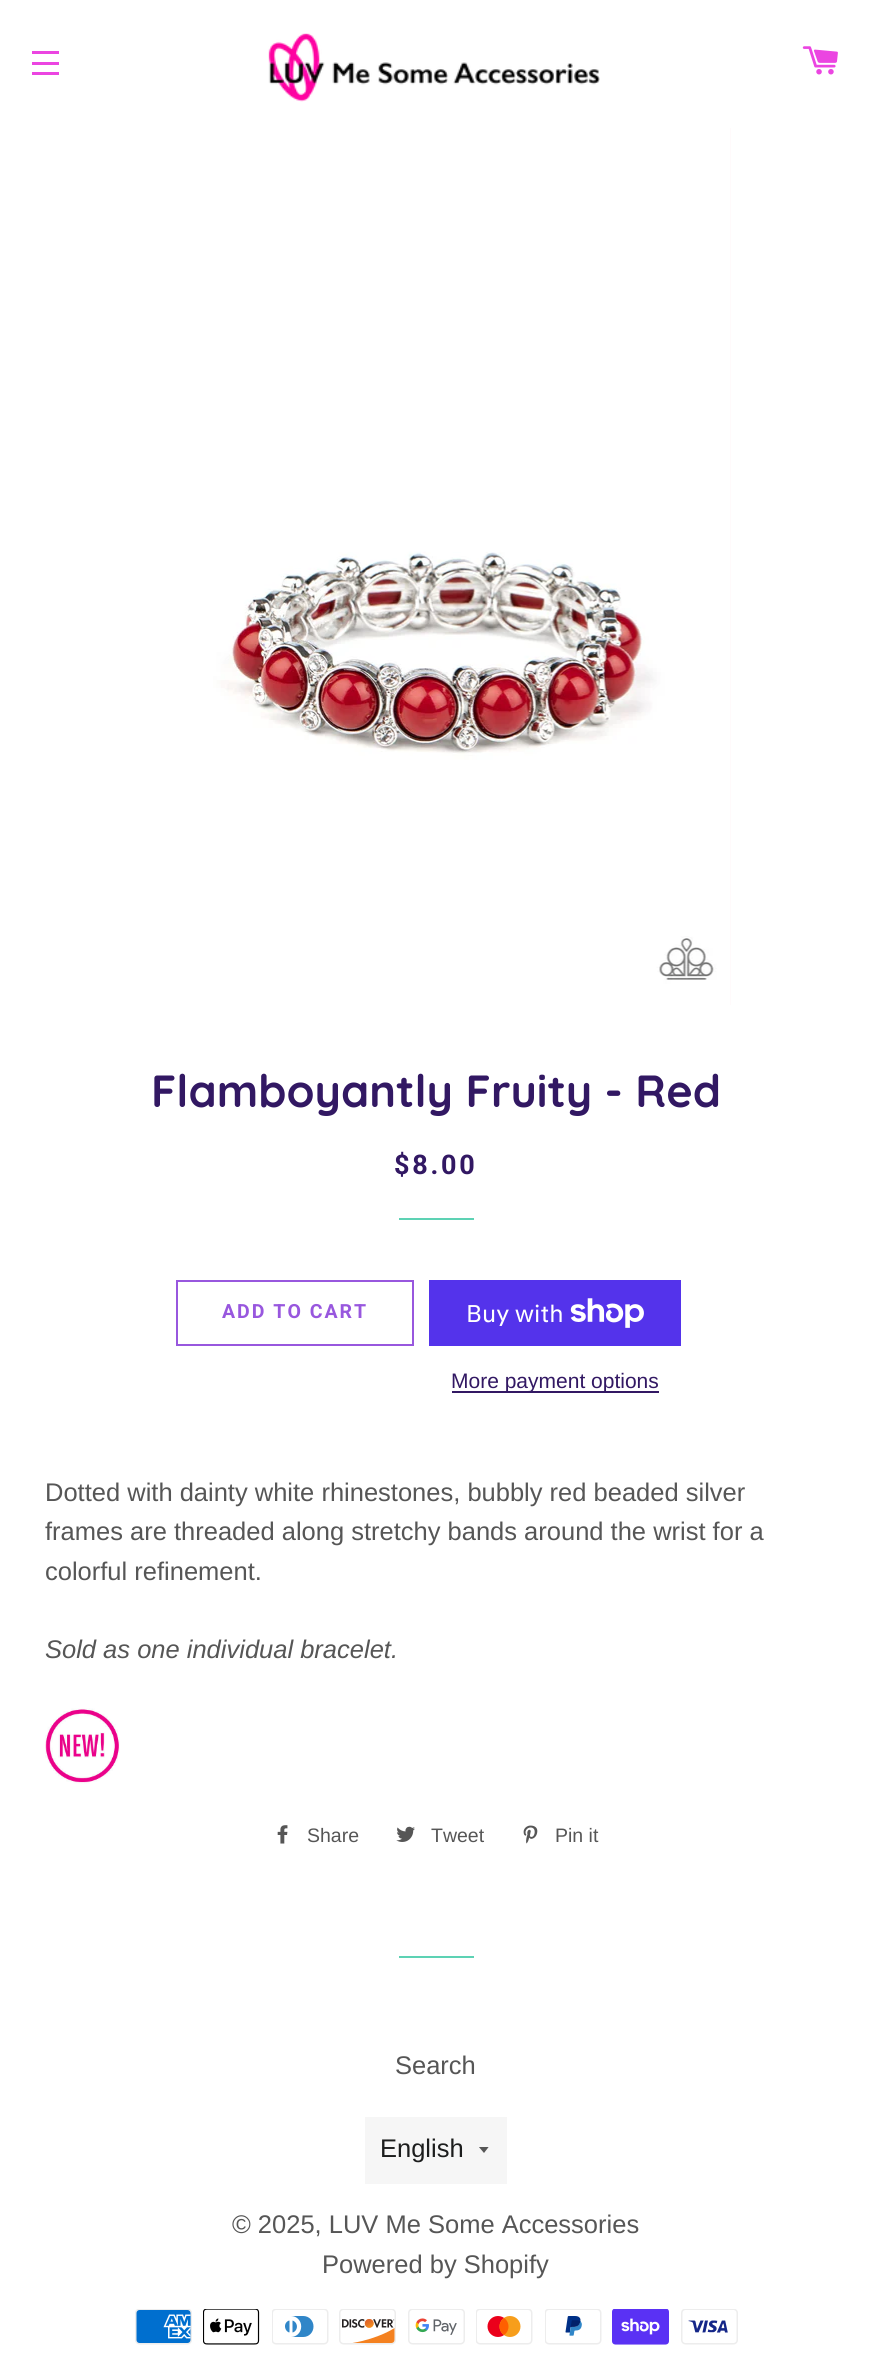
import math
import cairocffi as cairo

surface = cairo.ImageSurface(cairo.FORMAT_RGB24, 871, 2369)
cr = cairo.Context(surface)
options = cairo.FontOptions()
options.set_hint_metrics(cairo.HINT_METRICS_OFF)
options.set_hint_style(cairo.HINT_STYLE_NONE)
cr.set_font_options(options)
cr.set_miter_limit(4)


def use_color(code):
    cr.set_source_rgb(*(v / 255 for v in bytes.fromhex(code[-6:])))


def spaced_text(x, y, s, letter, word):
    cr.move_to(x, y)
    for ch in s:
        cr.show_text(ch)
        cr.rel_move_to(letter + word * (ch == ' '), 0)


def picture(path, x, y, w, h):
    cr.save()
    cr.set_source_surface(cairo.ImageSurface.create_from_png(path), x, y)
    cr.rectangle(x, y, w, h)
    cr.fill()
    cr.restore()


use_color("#ffffff")
cr.paint()
use_color("#eb45e1")
cr.rectangle(32, 51, 27, 3)
cr.fill()
cr.rectangle(32, 62, 27, 3)
cr.fill()
cr.rectangle(32, 72, 27, 3)
cr.fill()
picture("img1.png", 268, 33, 332, 69)
picture("img2.png", 802, 46, 36, 29)
use_color("#fff4f6")
cr.rectangle(730, 128, 1, 877)
cr.fill()
picture("img3.png", 141, 128, 590, 877)
cr.select_font_face("Quicksand", cairo.FONT_SLANT_NORMAL, cairo.FONT_WEIGHT_BOLD)
cr.set_font_size(45)
use_color("#321863")
cr.move_to(151, 1107)
cr.show_text("Flamboyantly Fruity - Red")
cr.select_font_face("Roboto", cairo.FONT_SLANT_NORMAL, cairo.FONT_WEIGHT_BOLD)
cr.set_font_size(27)
spaced_text(394, 1174, "$8.00", 2.75, 0)
use_color("#5dd2b4")
cr.rectangle(399, 1218, 75, 2)
cr.fill()
cr.rectangle(177, 1281, 236, 64)
use_color("#9857de")
cr.stroke()
cr.set_font_size(19.5)
spaced_text(222, 1318, "ADD TO CART", 2, 0)
use_color("#5433eb")
cr.rectangle(429, 1280, 252, 66)
cr.fill()
cr.select_font_face("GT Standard")
cr.set_font_size(24)
use_color("#ffffff")
cr.move_to(466, 1322)
cr.show_text("Buy with")
picture("img4.png", 570, 1298, 74, 30)
use_color("#321863")
cr.rectangle(452, 1391, 207, 2)
cr.fill()
cr.select_font_face("Liberation Sans")
cr.set_font_size(21)
cr.move_to(451, 1388)
cr.show_text("More payment options")
cr.set_font_size(25.5)
use_color("#565656")
cr.move_to(45, 1501)
cr.show_text("Dotted with dainty white rhinestones, bubbly red beaded silver")
cr.move_to(45, 1540)
cr.show_text("frames are threaded along stretchy bands around the wrist for a")
cr.move_to(45, 1580)
cr.show_text("colorful refinement.")
cr.select_font_face("Liberation Sans", cairo.FONT_SLANT_ITALIC)
cr.move_to(45, 1658)
cr.show_text("Sold as one individual bracelet.")
picture("img5.png", 45, 1708, 75, 76)
picture("img6.png", 277, 1825, 11, 19)
cr.select_font_face("Liberation Sans")
cr.set_font_size(19.5)
cr.move_to(307, 1842)
cr.show_text("Share")
picture("img7.png", 396, 1826, 19, 16)
cr.move_to(431, 1842)
cr.show_text("Tweet")
picture("img8.png", 523, 1825, 15, 19)
cr.move_to(555, 1842)
cr.show_text("Pin it")
use_color("#5dd2b4")
cr.rectangle(399, 1956, 75, 2)
cr.fill()
cr.set_font_size(25.5)
use_color("#565656")
cr.move_to(395, 2074)
cr.show_text("Search")
use_color("#f6f6f6")
cr.rectangle(365, 2117, 142, 67)
cr.fill()
cr.save()
cr.rectangle(479, 2147, 12, 7)
cr.clip()
use_color("#565656")
cr.new_path()
cr.move_to(478.5, 2146.5)
cr.line_to(484, 2153)
cr.line_to(489, 2146.5)
cr.close_path()
cr.fill()
cr.restore()
use_color("#1c1d1d")
cr.move_to(380, 2157)
cr.show_text("English")
use_color("#565656")
cr.move_to(232, 2233)
cr.show_text("© 2025, LUV Me Some Accessories")
cr.move_to(322, 2273)
cr.show_text("Powered by Shopify")
picture("img9.png", 135, 2309, 57, 36)
picture("img10.png", 203, 2309, 57, 36)
picture("img11.png", 272, 2309, 57, 36)
picture("img12.png", 339, 2309, 57, 36)
picture("img13.png", 408, 2309, 57, 36)
picture("img14.png", 476, 2309, 57, 36)
picture("img15.png", 545, 2309, 57, 36)
picture("img16.png", 612, 2309, 57, 36)
picture("img17.png", 681, 2309, 57, 36)
surface.write_to_png("result.png")
